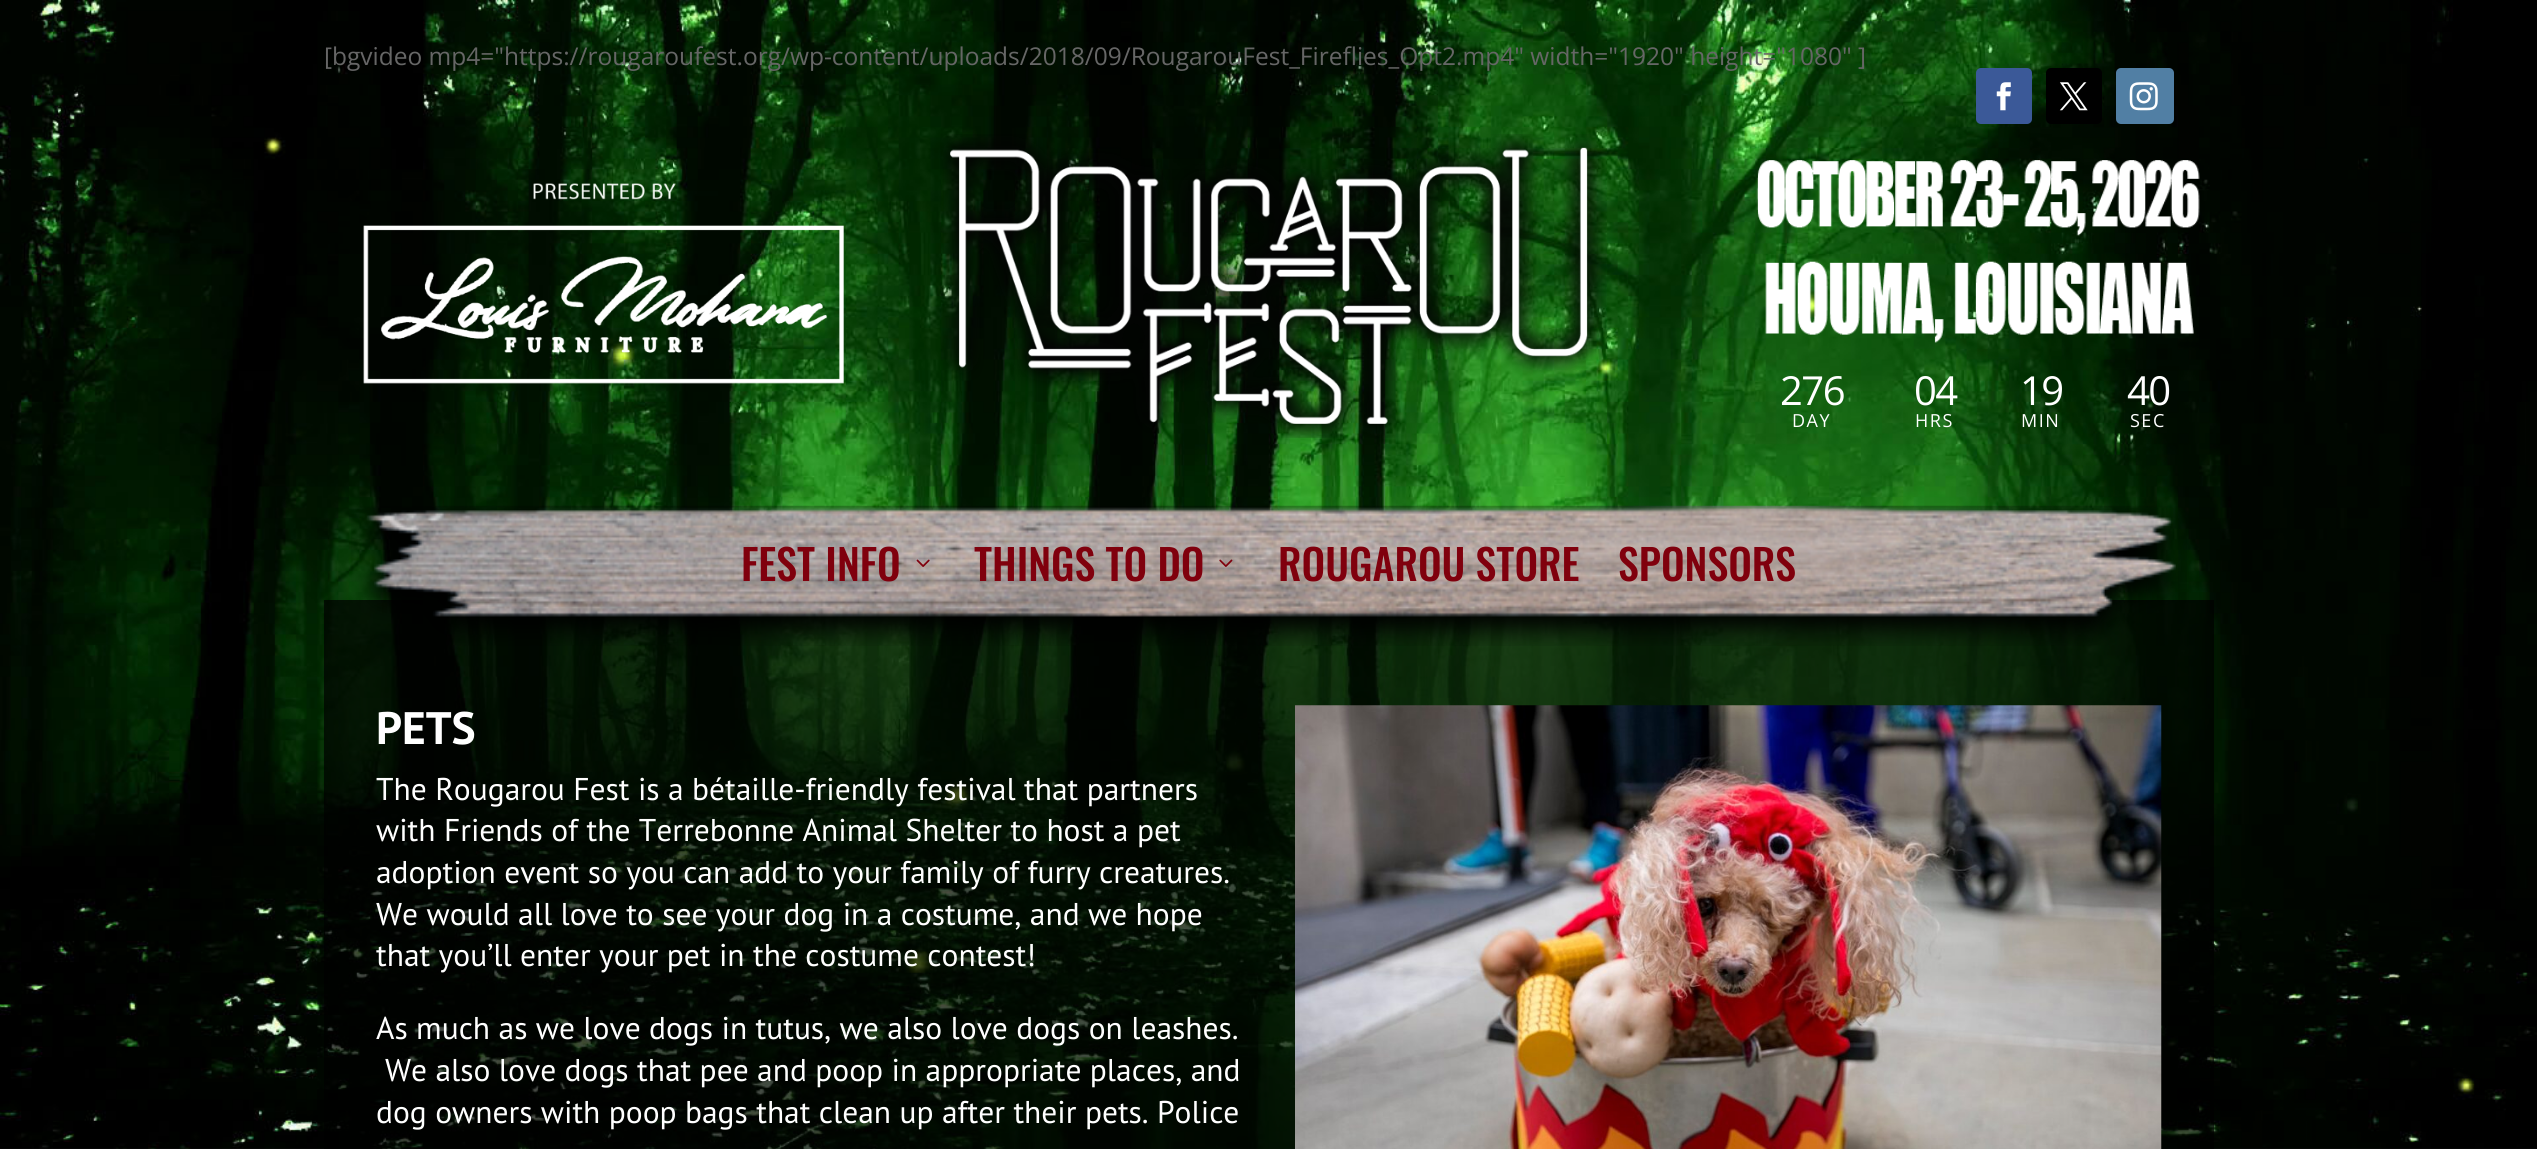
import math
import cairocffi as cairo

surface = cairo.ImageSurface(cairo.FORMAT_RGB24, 2537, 1149)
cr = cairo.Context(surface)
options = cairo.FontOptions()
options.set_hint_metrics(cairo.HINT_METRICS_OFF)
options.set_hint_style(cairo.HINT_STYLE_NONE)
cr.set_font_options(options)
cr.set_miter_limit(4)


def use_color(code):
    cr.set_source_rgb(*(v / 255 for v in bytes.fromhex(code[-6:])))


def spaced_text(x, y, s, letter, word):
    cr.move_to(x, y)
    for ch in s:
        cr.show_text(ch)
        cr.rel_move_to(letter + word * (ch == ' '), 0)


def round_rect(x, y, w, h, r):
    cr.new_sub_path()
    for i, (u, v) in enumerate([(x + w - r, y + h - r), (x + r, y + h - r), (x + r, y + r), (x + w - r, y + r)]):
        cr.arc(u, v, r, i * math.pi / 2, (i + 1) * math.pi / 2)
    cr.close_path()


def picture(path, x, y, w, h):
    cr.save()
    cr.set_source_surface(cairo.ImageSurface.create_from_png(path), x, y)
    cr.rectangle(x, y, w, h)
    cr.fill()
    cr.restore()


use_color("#ffffff")
cr.paint()
picture("img1.png", 0, 0, 2537, 1149)
cr.select_font_face("Open Sans")
cr.set_font_size(24.5)
use_color("#666666")
cr.move_to(324, 65)
cr.show_text("[bgvideo mp4=\"https://rougaroufest.org/wp-content/uploads/2018/09/RougarouFest_Fireflies_Opt2.mp4\" width=\"1920\" height=\"1080\" ]")
use_color("#3b5998")
round_rect(1976, 68, 56, 56, 5)
cr.fill()
picture("img2.png", 1996, 82, 15, 29)
use_color("#000000")
round_rect(2046, 68, 56, 56, 5)
cr.fill()
picture("img3.png", 2059, 82, 29, 29)
use_color("#517fa4")
round_rect(2116, 68, 58, 56, 5)
cr.fill()
picture("img4.png", 2129, 82, 29, 29)
picture("img5.png", 363, 183, 481, 201)
picture("img6.png", 940, 134, 666, 304)
picture("img7.png", 1756, 160, 444, 183)
cr.set_font_size(40)
use_color("#ffffff")
spaced_text(1780, 405, "276", -1.5, 0)
cr.set_font_size(18)
spaced_text(1792, 427, "DAY", 1.5, 0)
cr.set_font_size(40)
spaced_text(1914, 405, "04", -1.5, 0)
cr.set_font_size(18)
spaced_text(1915, 427, "HRS", 1.5, 0)
cr.set_font_size(40)
spaced_text(2020, 405, "19", -1.5, 0)
cr.set_font_size(18)
spaced_text(2021, 427, "MIN", 1.5, 0)
cr.set_font_size(40)
spaced_text(2127, 405, "40", -1.5, 0)
cr.set_font_size(18)
spaced_text(2130, 427, "SEC", 1.5, 0)
cr.set_source_rgba(0, 0, 0, 0.7)
cr.rectangle(324, 600, 1890, 549)
cr.fill()
picture("img8.png", 351, 505, 1836, 141)
cr.select_font_face("Oswald Medium")
cr.set_font_size(42)
use_color("#80000d")
cr.move_to(741, 581)
cr.show_text("FEST INFO")
picture("img9.png", 916, 559, 14, 8)
cr.move_to(974, 581)
cr.show_text("THINGS TO DO")
picture("img10.png", 1219, 559, 14, 8)
cr.move_to(1278, 581)
cr.show_text("ROUGAROU STORE")
cr.move_to(1618, 581)
cr.show_text("SPONSORS")
cr.select_font_face("PT Sans", cairo.FONT_SLANT_NORMAL, cairo.FONT_WEIGHT_BOLD)
cr.set_font_size(45.5)
use_color("#ffffff")
cr.move_to(376, 744)
cr.show_text("PETS")
cr.select_font_face("PT Sans")
cr.set_font_size(31.5)
cr.move_to(376, 800)
cr.show_text("The Rougarou Fest is a bétaille-friendly festival that partners")
cr.move_to(376, 841)
cr.show_text("with Friends of the Terrebonne Animal Shelter to host a pet")
cr.move_to(376, 883)
cr.show_text("adoption event so you can add to your family of furry creatures.")
cr.move_to(376, 925)
cr.show_text("We would all love to see your dog in a costume, and we hope")
cr.move_to(376, 966)
cr.show_text("that you’ll enter your pet in the costume contest!")
cr.move_to(376, 1039)
cr.show_text("As much as we love dogs in tutus, we also love dogs on leashes.")
cr.move_to(385, 1081)
cr.show_text("We also love dogs that pee and poop in appropriate places, and")
cr.move_to(376, 1123)
cr.show_text("dog owners with poop bags that clean up after their pets. Police")
picture("img11.png", 1295, 705, 867, 444)
surface.write_to_png("result.png")
